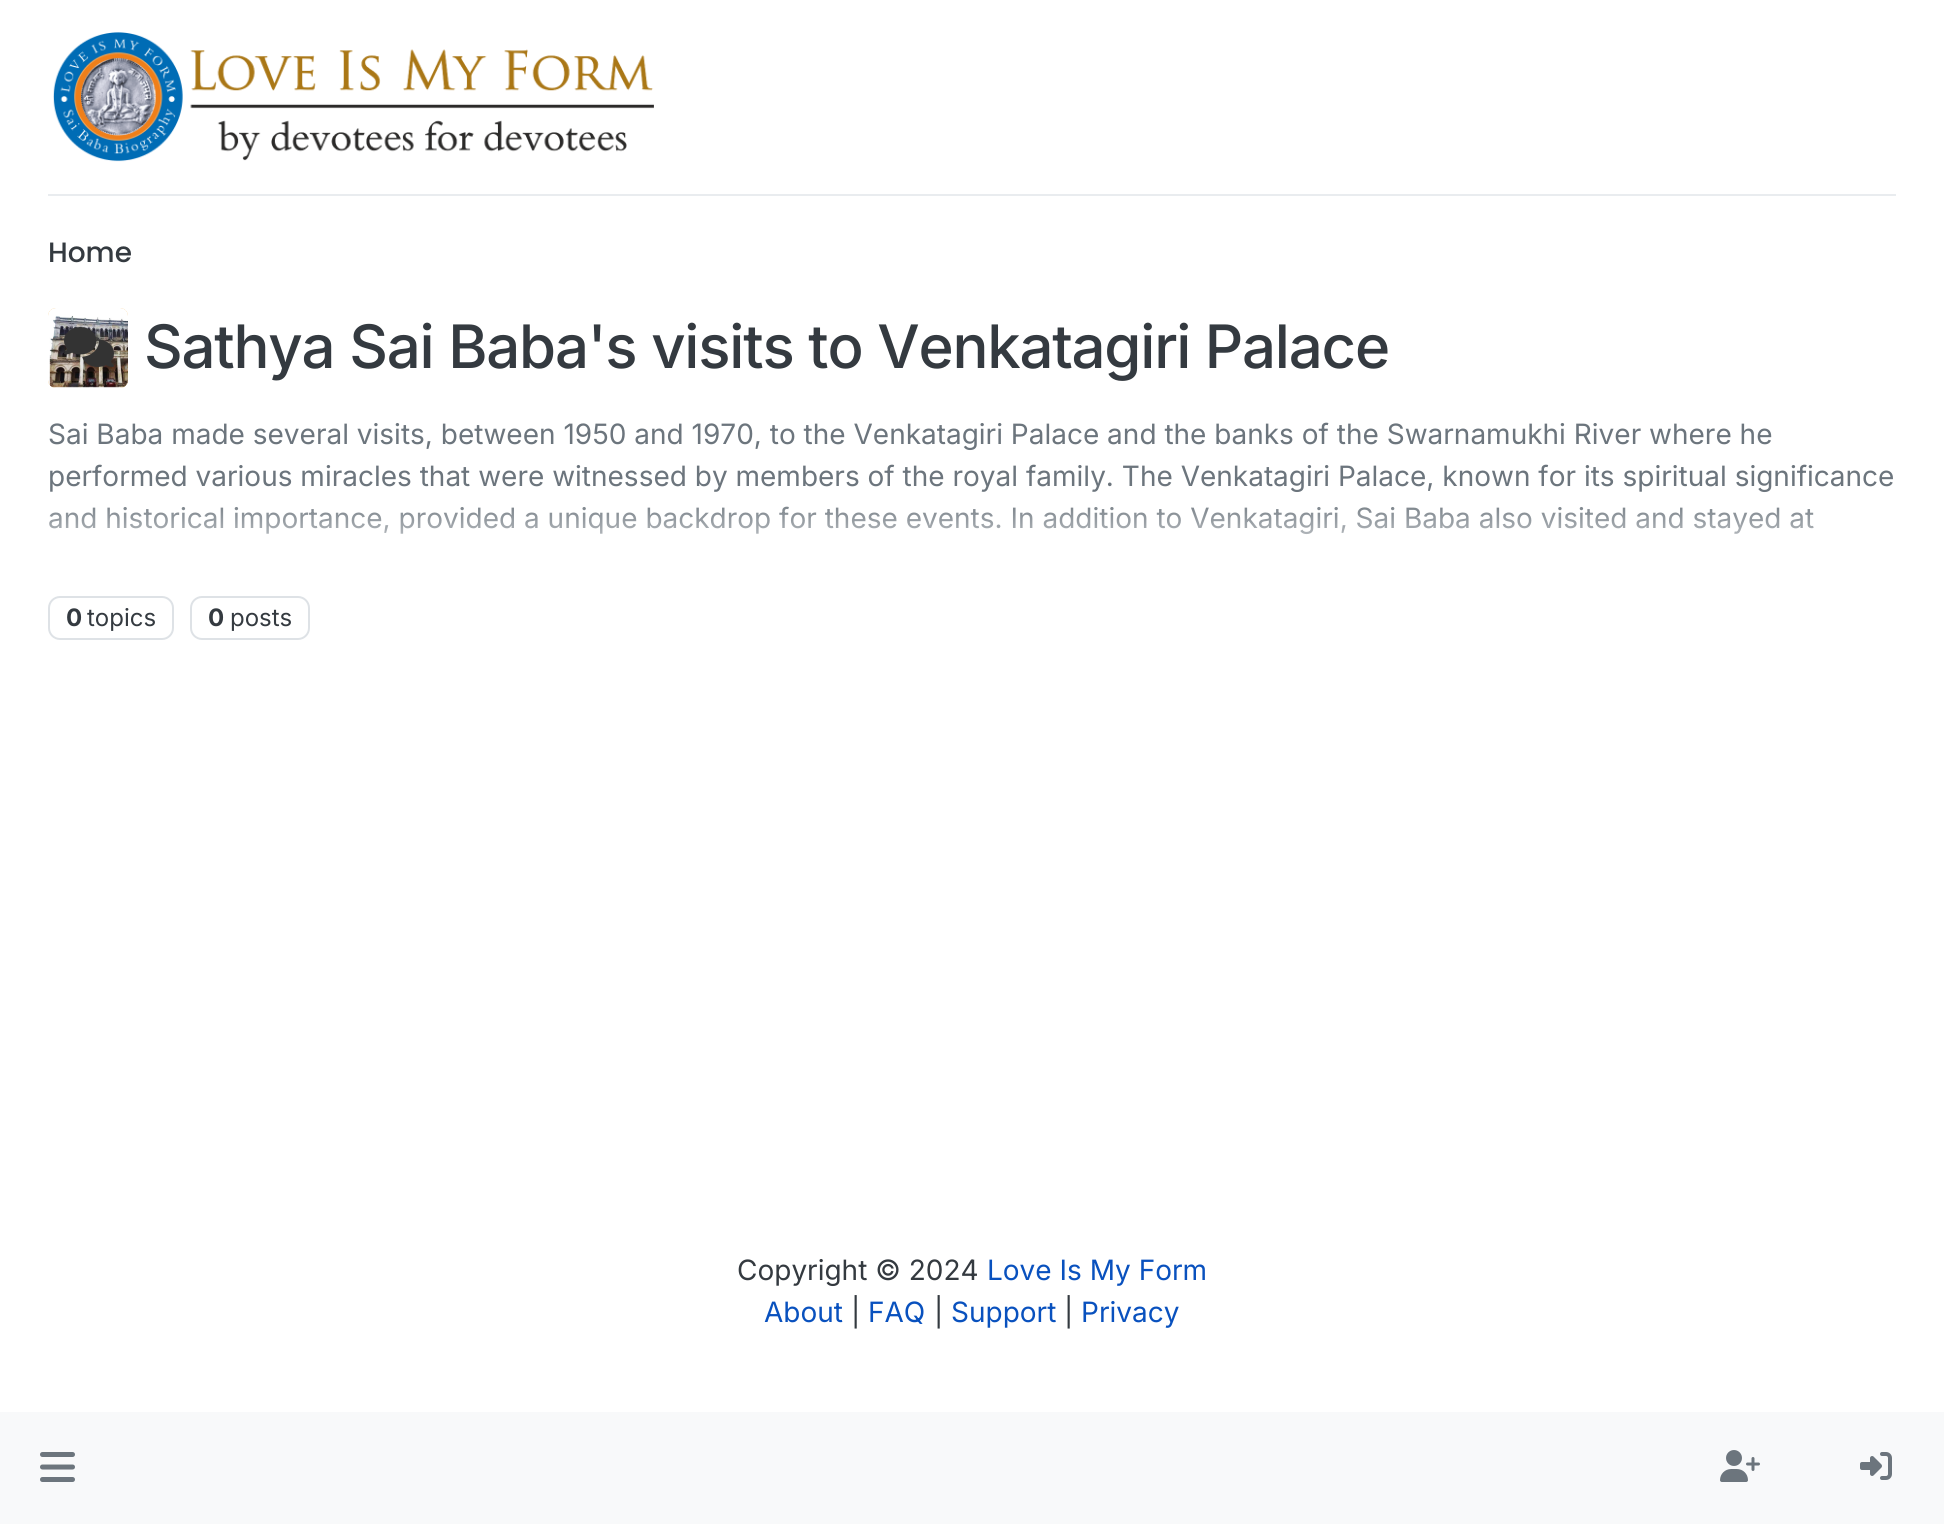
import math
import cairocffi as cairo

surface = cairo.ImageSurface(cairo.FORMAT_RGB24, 1944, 1524)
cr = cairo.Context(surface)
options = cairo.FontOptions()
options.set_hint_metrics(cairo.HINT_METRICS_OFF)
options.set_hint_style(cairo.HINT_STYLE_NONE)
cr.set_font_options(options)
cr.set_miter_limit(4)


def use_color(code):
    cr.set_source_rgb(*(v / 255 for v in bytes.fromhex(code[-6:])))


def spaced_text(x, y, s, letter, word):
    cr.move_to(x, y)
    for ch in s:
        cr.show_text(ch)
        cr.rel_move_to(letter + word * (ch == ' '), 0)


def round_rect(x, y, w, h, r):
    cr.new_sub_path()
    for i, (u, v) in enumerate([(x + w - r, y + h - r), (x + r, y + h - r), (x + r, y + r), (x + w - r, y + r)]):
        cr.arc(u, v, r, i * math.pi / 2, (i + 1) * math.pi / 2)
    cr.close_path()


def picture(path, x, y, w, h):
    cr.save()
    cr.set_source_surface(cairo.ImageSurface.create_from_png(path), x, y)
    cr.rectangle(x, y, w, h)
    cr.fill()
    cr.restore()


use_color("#ffffff")
cr.paint()
use_color("#e9ecef")
cr.rectangle(48, 194, 1848, 2)
cr.fill()
picture("img1.png", 53, 32, 601, 130)
cr.select_font_face("Poppins Medium")
cr.set_font_size(28)
use_color("#343a40")
cr.move_to(48, 262)
cr.show_text("Home")
use_color("#f7ca88")
round_rect(48, 308, 80, 80, 8)
cr.fill()
picture("img2.png", 48, 308, 80, 80)
picture("img3.png", 64, 327, 50, 40)
cr.select_font_face("Inter Medium")
cr.set_font_size(59.9)
use_color("#343a40")
spaced_text(144, 368, "Sathya Sai Baba's visits to Venkatagiri Palace", -1.2, 0)
cr.select_font_face("Inter")
cr.set_font_size(28)
use_color("#6c757d")
cr.move_to(48, 444)
cr.show_text("Sai Baba made several visits, between 1950 and 1970, to the Venkatagiri Palace and the banks of the Swarnamukhi River where he")
cr.move_to(48, 486)
cr.show_text("performed various miracles that were witnessed by members of the royal family. The Venkatagiri Palace, known for its spiritual significance")
cr.move_to(48, 528)
cr.show_text("and historical importance, provided a unique backdrop for these events. In addition to Venkatagiri, Sai Baba also visited and stayed at")
gradient = cairo.LinearGradient(972, 496, 972, 580)
gradient.add_color_stop_rgba(0, 1, 1, 1, 0)
gradient.add_color_stop_rgba(1, 1, 1, 1, 1)
cr.set_source(gradient)
cr.rectangle(49, 506, 1765, 28)
cr.fill()
round_rect(49, 597, 124, 42, 11)
use_color("#dee2e6")
cr.stroke()
cr.select_font_face("Inter", cairo.FONT_SLANT_NORMAL, cairo.FONT_WEIGHT_BOLD)
cr.set_font_size(24)
use_color("#343a40")
cr.move_to(66, 626)
cr.show_text("0")
cr.select_font_face("Inter")
cr.move_to(87, 626)
cr.show_text("topics")
round_rect(191, 597, 118, 42, 11)
use_color("#dee2e6")
cr.stroke()
cr.select_font_face("Inter", cairo.FONT_SLANT_NORMAL, cairo.FONT_WEIGHT_BOLD)
use_color("#343a40")
cr.move_to(208, 626)
cr.show_text("0")
cr.select_font_face("Inter")
cr.move_to(230, 626)
cr.show_text("posts")
cr.set_font_size(28)
cr.move_to(737, 1280)
cr.show_text("Copyright © 2024")
use_color("#0951be")
cr.move_to(987, 1280)
cr.show_text("Love Is My Form")
cr.move_to(764, 1322)
cr.show_text("About")
use_color("#343a40")
cr.move_to(851, 1322)
cr.show_text("|")
use_color("#0951be")
cr.move_to(868, 1322)
cr.show_text("FAQ")
use_color("#343a40")
cr.move_to(934, 1322)
cr.show_text("|")
use_color("#0951be")
cr.move_to(951, 1322)
cr.show_text("Support")
use_color("#343a40")
cr.move_to(1064, 1322)
cr.show_text("|")
use_color("#0951be")
cr.move_to(1081, 1322)
cr.show_text("Privacy")
use_color("#f8f9fa")
cr.rectangle(0, 1412, 1944, 112)
cr.fill()
picture("img4.png", 40, 1452, 35, 30)
picture("img5.png", 1720, 1450, 40, 32)
picture("img6.png", 1860, 1452, 32, 28)
surface.write_to_png("result.png")
